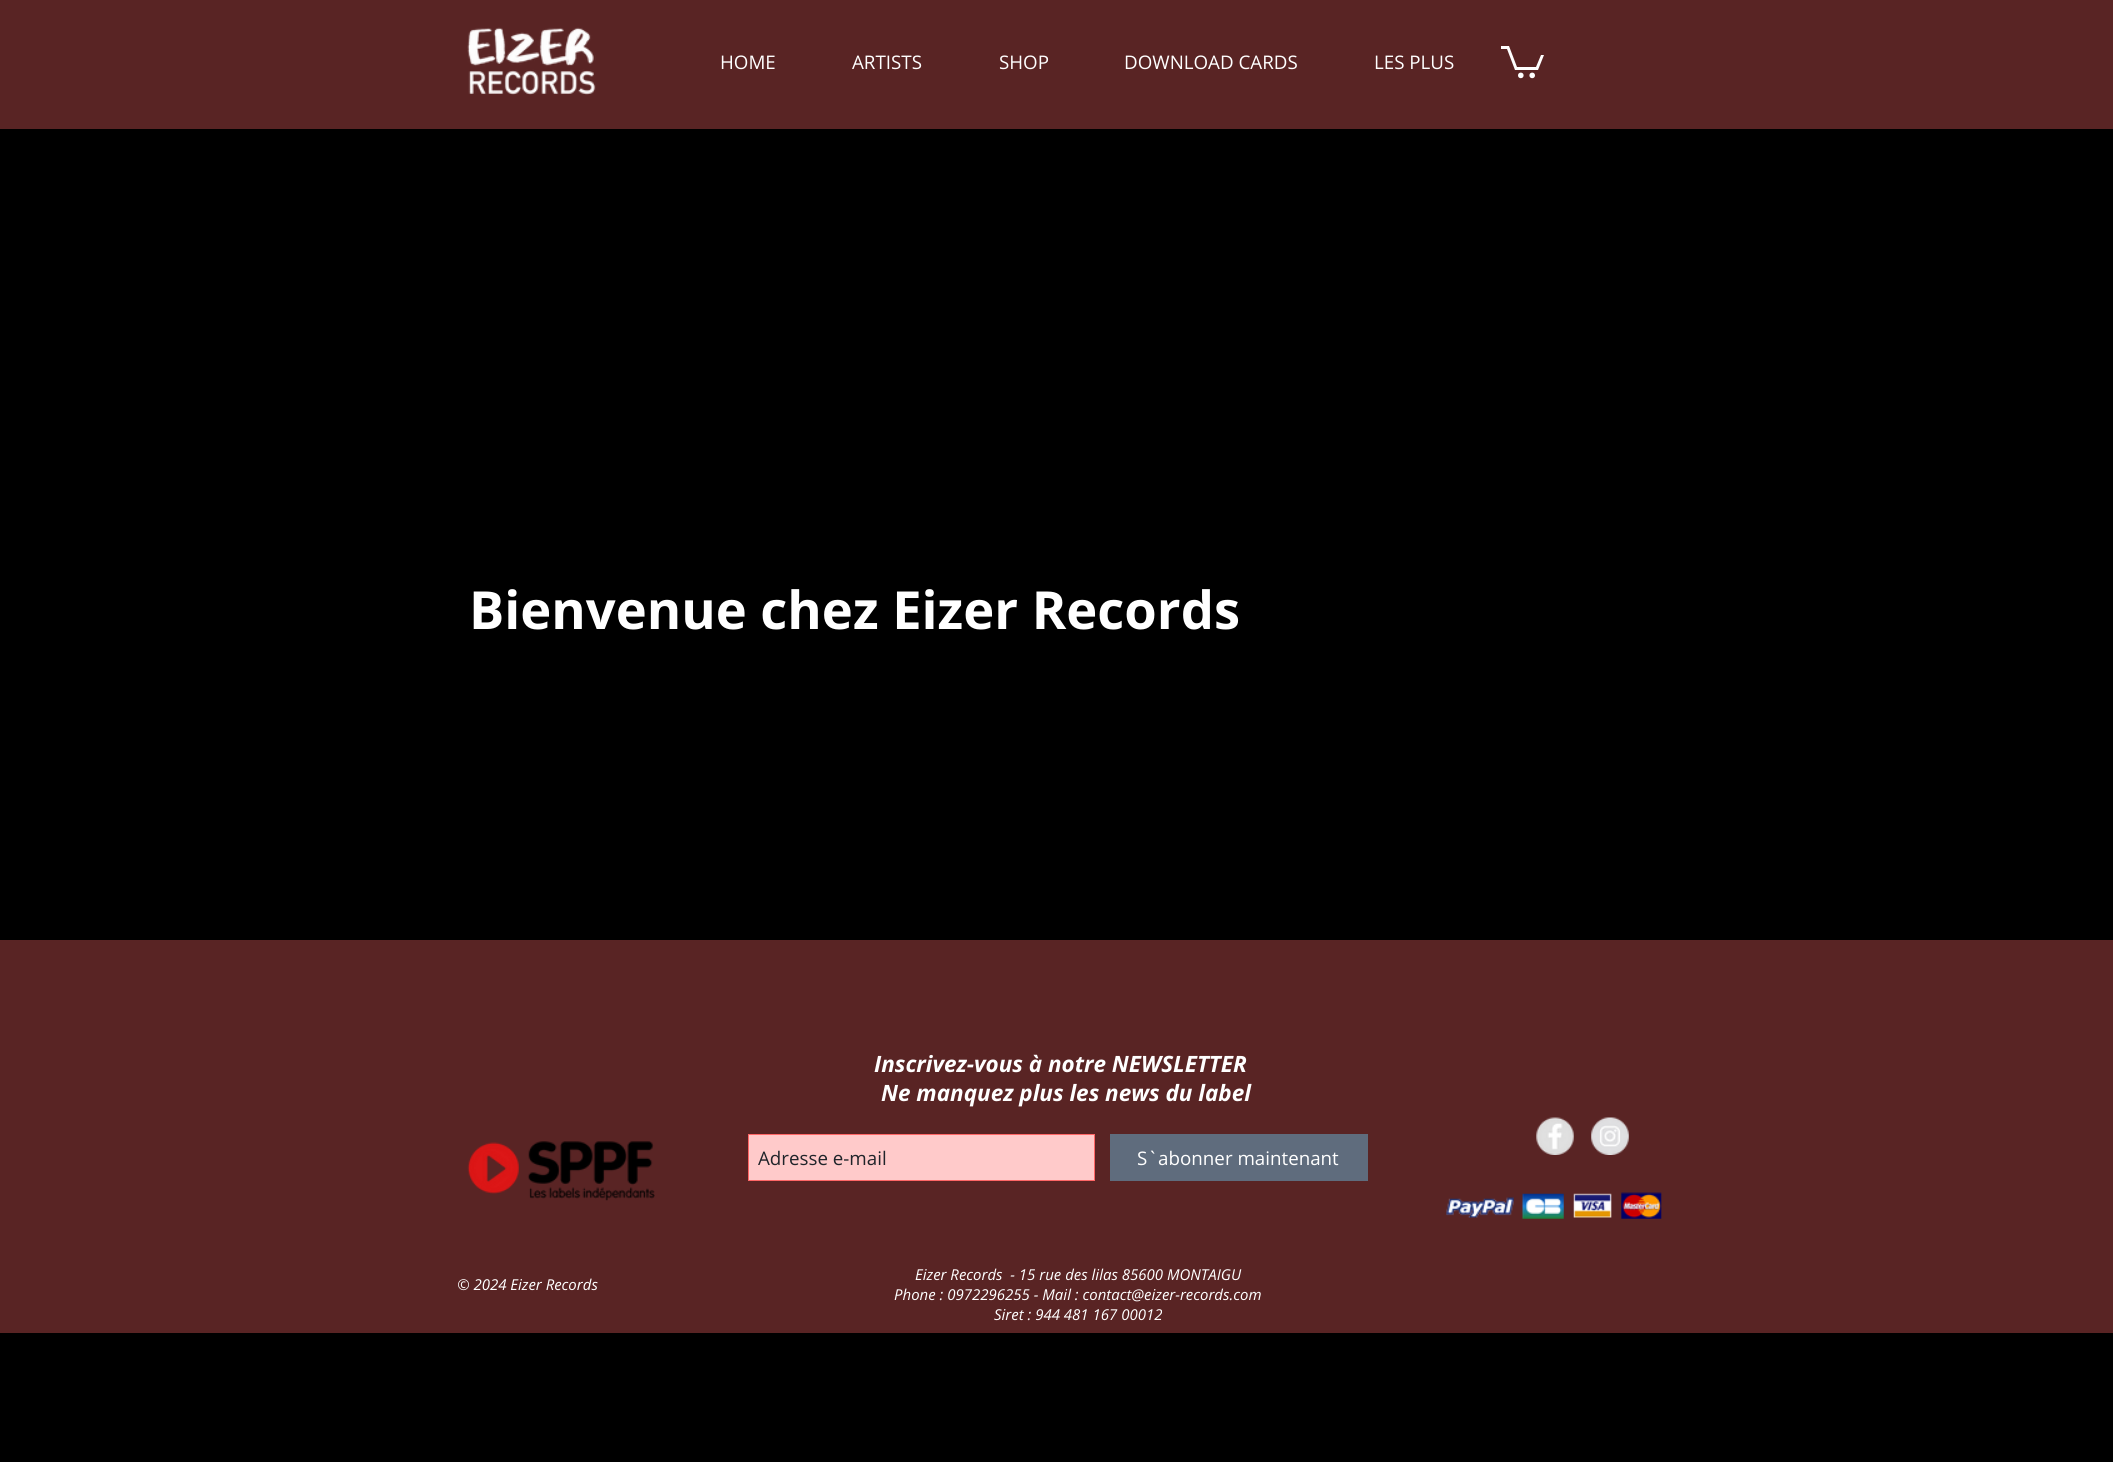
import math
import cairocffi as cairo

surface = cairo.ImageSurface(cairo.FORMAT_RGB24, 2113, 1462)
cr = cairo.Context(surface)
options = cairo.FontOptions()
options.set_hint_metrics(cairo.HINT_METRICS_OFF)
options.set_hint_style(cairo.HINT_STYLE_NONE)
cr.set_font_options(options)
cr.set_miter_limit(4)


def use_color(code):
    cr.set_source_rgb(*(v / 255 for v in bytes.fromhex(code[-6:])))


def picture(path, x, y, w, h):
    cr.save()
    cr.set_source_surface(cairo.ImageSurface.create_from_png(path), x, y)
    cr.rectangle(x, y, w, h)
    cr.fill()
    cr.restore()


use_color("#000000")
cr.paint()
use_color("#592424")
cr.rectangle(0, 0, 2113, 129)
cr.fill()
picture("img1.png", 467, 27, 129, 68)
cr.select_font_face("Open Sans")
cr.set_font_size(18.75)
use_color("#ffffff")
cr.move_to(720, 69)
cr.show_text("HOME")
cr.move_to(852, 69)
cr.show_text("ARTISTS")
cr.move_to(999, 69)
cr.show_text("SHOP")
cr.move_to(1124, 69)
cr.show_text("DOWNLOAD CARDS")
cr.move_to(1374, 69)
cr.show_text("LES PLUS")
cr.new_path()
cr.move_to(1544, 55)
cr.line_to(1538, 70)
cr.line_to(1515, 70)
cr.line_to(1507, 49)
cr.line_to(1501, 49)
cr.line_to(1501, 46)
cr.line_to(1509, 46)
cr.line_to(1517, 67)
cr.line_to(1536, 67)
cr.line_to(1541, 55)
cr.fill()
cr.arc(1532.2, 75.4, 2.8, 0, 2 * math.pi)
cr.fill()
cr.arc(1520.8, 75.4, 2.8, 0, 2 * math.pi)
cr.fill()
cr.select_font_face("Open Sans", cairo.FONT_SLANT_NORMAL, cairo.FONT_WEIGHT_BOLD)
cr.set_font_size(52.5)
cr.move_to(469, 629)
cr.show_text("Bienvenue chez Eizer Records")
use_color("#592424")
cr.rectangle(0, 940, 2113, 393)
cr.fill()
cr.select_font_face("Open Sans", cairo.FONT_SLANT_ITALIC, cairo.FONT_WEIGHT_BOLD)
cr.set_font_size(22.5)
use_color("#ffffff")
cr.move_to(874, 1072)
cr.show_text("Inscrivez-vous à notre NEWSLETTER")
cr.move_to(881, 1101)
cr.show_text("Ne manquez plus les news du label")
use_color("#ffcaca")
cr.rectangle(748.5, 1134.5, 346, 46)
cr.fill_preserve()
use_color("#ff6666")
cr.set_line_width(1)
cr.stroke()
cr.select_font_face("Open Sans")
cr.set_font_size(18.75)
use_color("#20242a")
cr.move_to(758, 1165)
cr.show_text("Adresse e-mail")
use_color("#5f6c7d")
cr.rectangle(1110, 1134, 258, 47)
cr.fill()
use_color("#ffffff")
cr.move_to(1137, 1165)
cr.show_text("S`abonner maintenant")
picture("img2.png", 1536, 1117, 38, 38)
picture("img3.png", 1591, 1117, 38, 38)
picture("img4.png", 467, 1141, 188, 60)
picture("img5.png", 1446, 1192, 216, 27)
cr.select_font_face("Open Sans", cairo.FONT_SLANT_ITALIC)
cr.set_font_size(15)
cr.move_to(457, 1290)
cr.show_text("© 2024 Eizer Records")
cr.move_to(915, 1280)
cr.show_text("Eizer Records  - 15 rue des lilas 85600 MONTAIGU")
cr.move_to(894, 1300)
cr.show_text("Phone : 0972296255 - Mail : contact@eizer-records.com")
cr.move_to(994, 1320)
cr.show_text("Siret : 944 481 167 00012")
surface.write_to_png("result.png")
